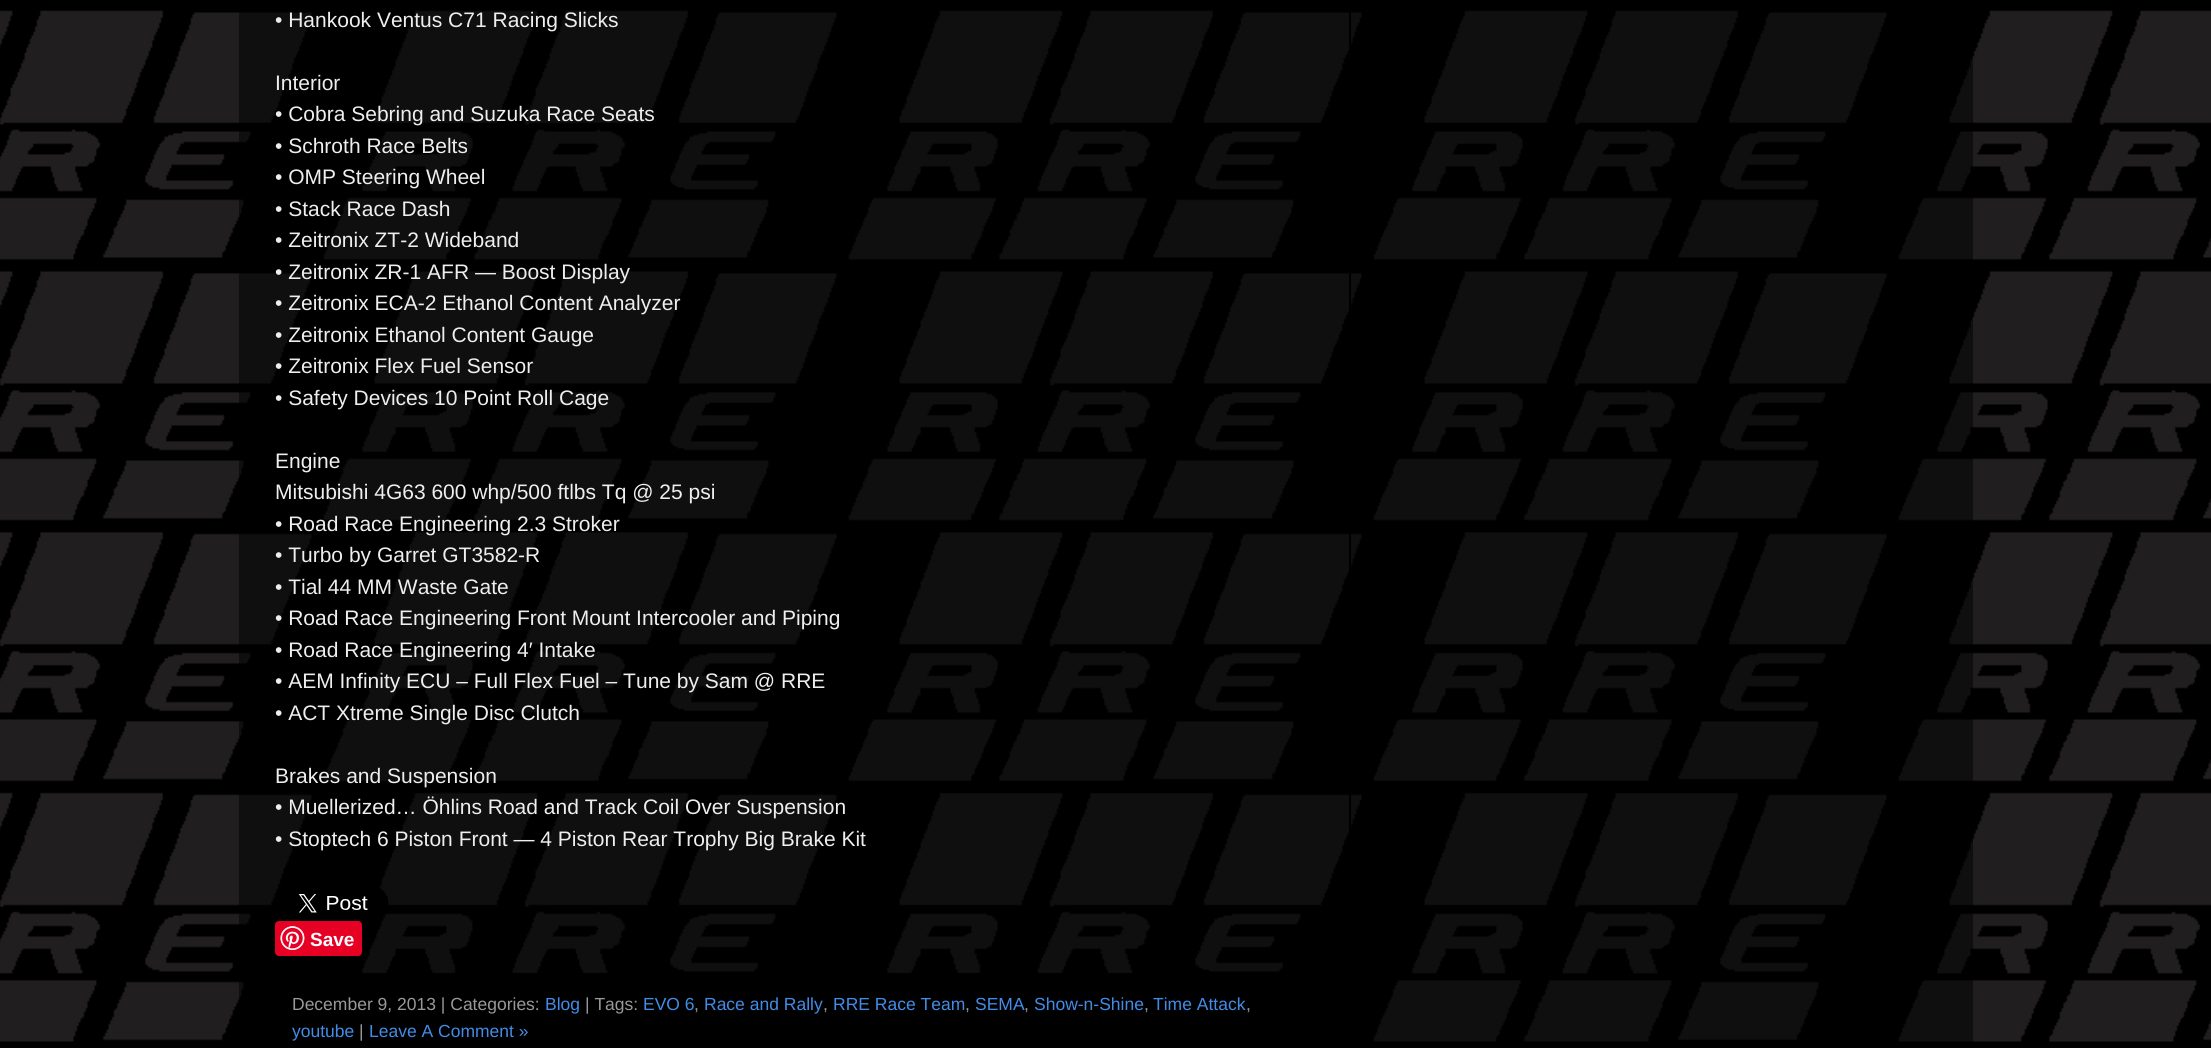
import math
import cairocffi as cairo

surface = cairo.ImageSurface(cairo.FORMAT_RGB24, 2211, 1048)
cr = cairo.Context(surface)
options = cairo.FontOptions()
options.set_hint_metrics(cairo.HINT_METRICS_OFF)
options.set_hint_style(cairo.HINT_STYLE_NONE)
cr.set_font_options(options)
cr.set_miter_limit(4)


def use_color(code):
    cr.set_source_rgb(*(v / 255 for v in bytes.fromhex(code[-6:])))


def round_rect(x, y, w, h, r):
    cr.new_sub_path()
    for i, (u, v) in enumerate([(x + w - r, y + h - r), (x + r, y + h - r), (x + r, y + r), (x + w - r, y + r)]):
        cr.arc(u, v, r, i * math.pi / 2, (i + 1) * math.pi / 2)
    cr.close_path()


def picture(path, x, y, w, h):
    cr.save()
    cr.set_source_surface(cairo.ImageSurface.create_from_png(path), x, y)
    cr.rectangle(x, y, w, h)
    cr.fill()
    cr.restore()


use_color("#ffffff")
cr.paint()
picture("img1.png", 0, 0, 2211, 1048)
cr.set_source_rgba(0, 0, 0, 0.5)
cr.rectangle(239, 10, 1734, 1032)
cr.fill()
use_color("#000000")
cr.rectangle(1349, 12, 2, 821)
cr.fill()
cr.select_font_face("Liberation Sans")
cr.set_font_size(21)
use_color("#eeeeee")
cr.move_to(275, 27)
cr.show_text("• Hankook Ventus C71 Racing Slicks")
cr.move_to(275, 90)
cr.show_text("Interior")
cr.move_to(275, 121)
cr.show_text("• Cobra Sebring and Suzuka Race Seats")
cr.move_to(275, 153)
cr.show_text("• Schroth Race Belts")
cr.move_to(275, 184)
cr.show_text("• OMP Steering Wheel")
cr.move_to(275, 216)
cr.show_text("• Stack Race Dash")
cr.move_to(275, 247)
cr.show_text("• Zeitronix ZT-2 Wideband")
cr.move_to(275, 279)
cr.show_text("• Zeitronix ZR-1 AFR — Boost Display")
cr.move_to(275, 310)
cr.show_text("• Zeitronix ECA-2 Ethanol Content Analyzer")
cr.move_to(275, 342)
cr.show_text("• Zeitronix Ethanol Content Gauge")
cr.move_to(275, 373)
cr.show_text("• Zeitronix Flex Fuel Sensor")
cr.move_to(275, 405)
cr.show_text("• Safety Devices 10 Point Roll Cage")
cr.move_to(275, 468)
cr.show_text("Engine")
cr.move_to(275, 499)
cr.show_text("Mitsubishi 4G63 600 whp/500 ftlbs Tq @ 25 psi")
cr.move_to(275, 531)
cr.show_text("• Road Race Engineering 2.3 Stroker")
cr.move_to(275, 562)
cr.show_text("• Turbo by Garret GT3582-R")
cr.move_to(275, 594)
cr.show_text("• Tial 44 MM Waste Gate")
cr.move_to(275, 625)
cr.show_text("• Road Race Engineering Front Mount Intercooler and Piping")
cr.move_to(275, 657)
cr.show_text("• Road Race Engineering 4′ Intake")
cr.move_to(275, 688)
cr.show_text("• AEM Infinity ECU – Full Flex Fuel – Tune by Sam @ RRE")
cr.move_to(275, 720)
cr.show_text("• ACT Xtreme Single Disc Clutch")
cr.move_to(275, 783)
cr.show_text("Brakes and Suspension")
cr.move_to(275, 814)
cr.show_text("• Muellerized… Öhlins Road and Track Coil Over Suspension")
cr.move_to(275, 846)
cr.show_text("• Stoptech 6 Piston Front — 4 Piston Rear Trophy Big Brake Kit")
picture("img2.png", 299, 888, 90, 25)
use_color("#e60023")
round_rect(275, 921, 87, 35, 4)
cr.fill()
picture("img3.png", 280, 926, 25, 24)
cr.select_font_face("Liberation Sans", cairo.FONT_SLANT_NORMAL, cairo.FONT_WEIGHT_BOLD)
cr.set_font_size(19)
use_color("#ffffff")
cr.move_to(310, 946)
cr.show_text("Save")
use_color("#000000")
round_rect(275, 973, 1032, 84, 9)
cr.fill()
cr.select_font_face("Liberation Sans")
cr.set_font_size(17.5)
use_color("#999999")
cr.move_to(292, 1010)
cr.show_text("December 9, 2013 | Categories:")
use_color("#428ce7")
cr.move_to(545, 1010)
cr.show_text("Blog")
use_color("#999999")
cr.move_to(585, 1010)
cr.show_text("| Tags:")
use_color("#428ce7")
cr.move_to(643, 1010)
cr.show_text("EVO 6")
use_color("#999999")
cr.move_to(694, 1010)
cr.show_text(",")
use_color("#428ce7")
cr.move_to(704, 1010)
cr.show_text("Race and Rally")
use_color("#999999")
cr.move_to(823, 1010)
cr.show_text(",")
use_color("#428ce7")
cr.move_to(833, 1010)
cr.show_text("RRE Race Team")
use_color("#999999")
cr.move_to(965, 1010)
cr.show_text(",")
use_color("#428ce7")
cr.move_to(975, 1010)
cr.show_text("SEMA")
use_color("#999999")
cr.move_to(1024, 1010)
cr.show_text(",")
use_color("#428ce7")
cr.move_to(1034, 1010)
cr.show_text("Show-n-Shine")
use_color("#999999")
cr.move_to(1144, 1010)
cr.show_text(",")
use_color("#428ce7")
cr.move_to(1153, 1010)
cr.show_text("Time Attack")
use_color("#999999")
cr.move_to(1246, 1010)
cr.show_text(",")
use_color("#428ce7")
cr.move_to(292, 1037)
cr.show_text("youtube")
use_color("#999999")
cr.move_to(359, 1037)
cr.show_text("|")
use_color("#428ce7")
cr.move_to(369, 1037)
cr.show_text("Leave A Comment »")
surface.write_to_png("result.png")
